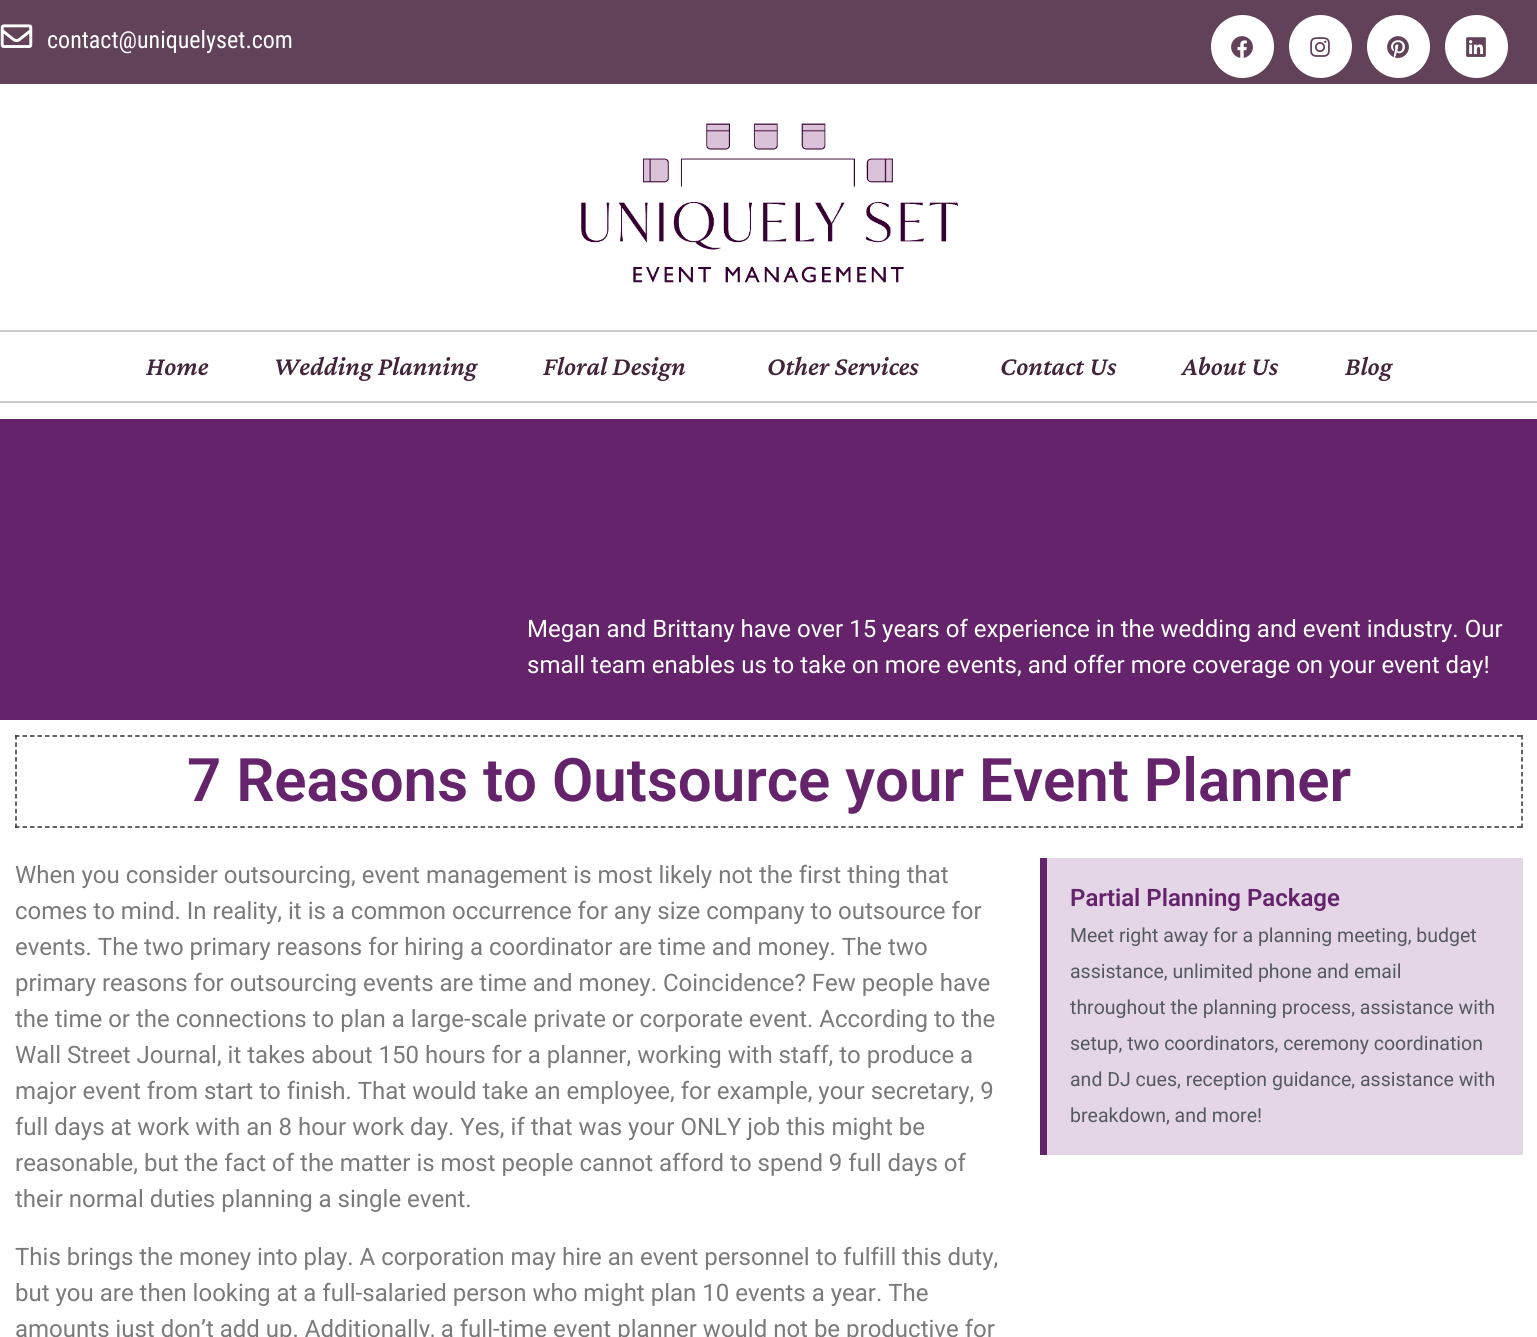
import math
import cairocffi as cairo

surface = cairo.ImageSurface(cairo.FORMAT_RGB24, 1537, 1337)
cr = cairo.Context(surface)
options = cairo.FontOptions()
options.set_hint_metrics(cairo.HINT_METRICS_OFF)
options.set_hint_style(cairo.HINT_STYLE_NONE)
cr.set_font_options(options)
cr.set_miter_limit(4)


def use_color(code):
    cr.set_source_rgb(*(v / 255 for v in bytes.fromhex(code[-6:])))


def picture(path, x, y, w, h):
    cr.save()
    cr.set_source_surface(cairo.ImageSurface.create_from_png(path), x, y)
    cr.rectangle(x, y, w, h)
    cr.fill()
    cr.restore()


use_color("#ffffff")
cr.paint()
use_color("#624259")
cr.rectangle(0, 0, 1537, 84)
cr.fill()
picture("img1.png", 0, 24, 33, 24)
cr.select_font_face("Roboto Condensed")
cr.set_font_size(24)
use_color("#ffffff")
cr.move_to(47, 48)
cr.show_text("contact@uniquelyset.com")
cr.new_path()
cr.arc(1242.5, 46.5, 31.5, 0, 2 * math.pi)
cr.fill()
picture("img2.png", 1231, 36, 22, 22)
cr.arc(1320.5, 46.5, 31.5, 0, 2 * math.pi)
cr.fill()
picture("img3.png", 1310, 37, 20, 20)
cr.arc(1398.5, 46.5, 31.5, 0, 2 * math.pi)
cr.fill()
picture("img4.png", 1387, 36, 22, 22)
cr.arc(1476.5, 46.5, 31.5, 0, 2 * math.pi)
cr.fill()
picture("img5.png", 1466, 37, 20, 20)
picture("img6.png", 581, 123, 377, 160)
use_color("#cbcbcb")
cr.rectangle(0, 330, 1537, 2)
cr.fill()
cr.rectangle(0, 401, 1537, 2)
cr.fill()
cr.select_font_face("Crimson Pro SemiBold", cairo.FONT_SLANT_ITALIC)
cr.set_font_size(27)
use_color("#42253a")
cr.move_to(146, 375)
cr.show_text("Home")
cr.move_to(274, 375)
cr.show_text("Wedding Planning")
cr.move_to(543, 375)
cr.show_text("Floral Design")
cr.move_to(767, 375)
cr.show_text("Other Services")
cr.move_to(1000, 375)
cr.show_text("Contact Us")
cr.move_to(1182, 375)
cr.show_text("About Us")
cr.move_to(1345, 375)
cr.show_text("Blog")
use_color("#65236c")
cr.rectangle(0, 419, 1537, 301)
cr.fill()
cr.select_font_face("Roboto")
cr.set_font_size(24)
use_color("#ffffff")
cr.move_to(527, 637)
cr.show_text("Megan and Brittany have over 15 years of experience in the wedding and event industry. Our")
cr.move_to(527, 673)
cr.show_text("small team enables us to take on more events, and offer more coverage on your event day!")
cr.new_path()
cr.move_to(15, 736)
cr.line_to(1522.5, 736)
use_color("#333333")
cr.set_line_width(1.5)
cr.set_dash([4.5, 3.01])
cr.stroke()
cr.new_path()
cr.move_to(1522, 735)
cr.line_to(1522, 828)
cr.set_dash([4.5, 2.88])
cr.stroke()
cr.new_path()
cr.move_to(15, 827)
cr.line_to(1522.5, 827)
cr.set_dash([4.5, 3.01])
cr.stroke()
cr.new_path()
cr.move_to(16, 735)
cr.line_to(16, 828)
cr.set_dash([4.5, 2.88])
cr.stroke()
cr.select_font_face("Roboto SemiBold")
cr.set_font_size(60)
use_color("#65236c")
cr.move_to(187, 801)
cr.show_text("7 Reasons to Outsource your Event Planner")
cr.select_font_face("Roboto")
cr.set_font_size(24)
use_color("#7a7a7a")
cr.move_to(15, 883)
cr.show_text("When you consider outsourcing, event management is most likely not the first thing that")
cr.move_to(15, 919)
cr.show_text("comes to mind. In reality, it is a common occurrence for any size company to outsource for")
cr.move_to(15, 955)
cr.show_text("events. The two primary reasons for hiring a coordinator are time and money. The two")
cr.move_to(15, 991)
cr.show_text("primary reasons for outsourcing events are time and money. Coincidence? Few people have")
cr.move_to(15, 1027)
cr.show_text("the time or the connections to plan a large-scale private or corporate event. According to the")
cr.move_to(15, 1063)
cr.show_text("Wall Street Journal, it takes about 150 hours for a planner, working with staff, to produce a")
cr.move_to(15, 1099)
cr.show_text("major event from start to finish. That would take an employee, for example, your secretary, 9")
cr.move_to(15, 1135)
cr.show_text("full days at work with an 8 hour work day. Yes, if that was your ONLY job this might be")
cr.move_to(15, 1171)
cr.show_text("reasonable, but the fact of the matter is most people cannot afford to spend 9 full days of")
cr.move_to(15, 1207)
cr.show_text("their normal duties planning a single event.")
cr.move_to(15, 1265)
cr.show_text("This brings the money into play. A corporation may hire an event personnel to fulfill this duty,")
cr.move_to(15, 1301)
cr.show_text("but you are then looking at a full-salaried person who might plan 10 events a year. The")
cr.move_to(15, 1337)
cr.show_text("amounts just don’t add up. Additionally, a full-time event planner would not be productive for")
use_color("#e4d6e7")
cr.rectangle(1047, 858, 476, 297)
cr.fill()
use_color("#65236c")
cr.rectangle(1040, 858, 7, 297)
cr.fill()
cr.select_font_face("Roboto SemiBold")
cr.move_to(1070, 906)
cr.show_text("Partial Planning Package")
cr.select_font_face("Roboto")
cr.set_font_size(19.5)
use_color("#54595f")
cr.move_to(1070, 942)
cr.show_text("Meet right away for a planning meeting, budget")
cr.move_to(1070, 978)
cr.show_text("assistance, unlimited phone and email")
cr.move_to(1070, 1014)
cr.show_text("throughout the planning process, assistance with")
cr.move_to(1070, 1050)
cr.show_text("setup, two coordinators, ceremony coordination")
cr.move_to(1070, 1086)
cr.show_text("and DJ cues, reception guidance, assistance with")
cr.move_to(1070, 1122)
cr.show_text("breakdown, and more!")
surface.write_to_png("result.png")
